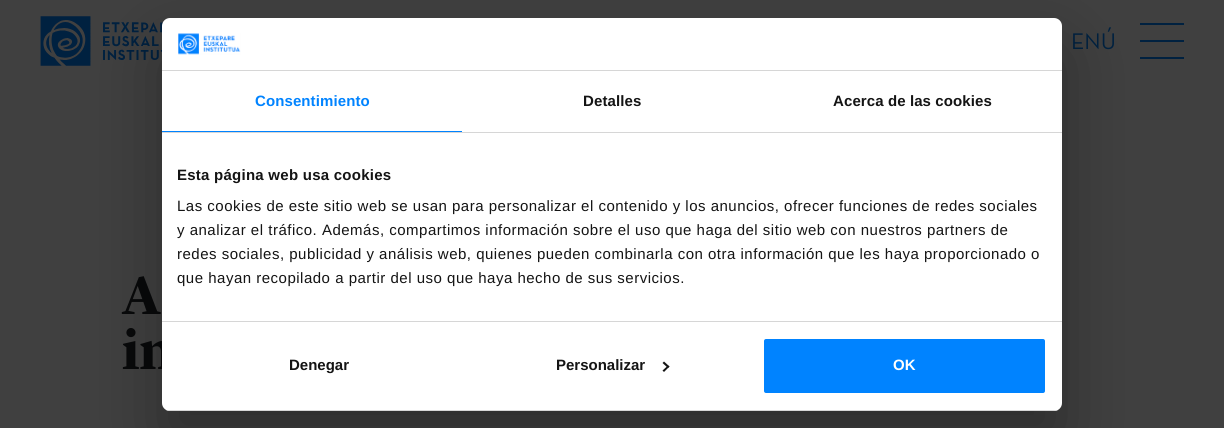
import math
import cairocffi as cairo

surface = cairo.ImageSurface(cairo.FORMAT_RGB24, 1224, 428)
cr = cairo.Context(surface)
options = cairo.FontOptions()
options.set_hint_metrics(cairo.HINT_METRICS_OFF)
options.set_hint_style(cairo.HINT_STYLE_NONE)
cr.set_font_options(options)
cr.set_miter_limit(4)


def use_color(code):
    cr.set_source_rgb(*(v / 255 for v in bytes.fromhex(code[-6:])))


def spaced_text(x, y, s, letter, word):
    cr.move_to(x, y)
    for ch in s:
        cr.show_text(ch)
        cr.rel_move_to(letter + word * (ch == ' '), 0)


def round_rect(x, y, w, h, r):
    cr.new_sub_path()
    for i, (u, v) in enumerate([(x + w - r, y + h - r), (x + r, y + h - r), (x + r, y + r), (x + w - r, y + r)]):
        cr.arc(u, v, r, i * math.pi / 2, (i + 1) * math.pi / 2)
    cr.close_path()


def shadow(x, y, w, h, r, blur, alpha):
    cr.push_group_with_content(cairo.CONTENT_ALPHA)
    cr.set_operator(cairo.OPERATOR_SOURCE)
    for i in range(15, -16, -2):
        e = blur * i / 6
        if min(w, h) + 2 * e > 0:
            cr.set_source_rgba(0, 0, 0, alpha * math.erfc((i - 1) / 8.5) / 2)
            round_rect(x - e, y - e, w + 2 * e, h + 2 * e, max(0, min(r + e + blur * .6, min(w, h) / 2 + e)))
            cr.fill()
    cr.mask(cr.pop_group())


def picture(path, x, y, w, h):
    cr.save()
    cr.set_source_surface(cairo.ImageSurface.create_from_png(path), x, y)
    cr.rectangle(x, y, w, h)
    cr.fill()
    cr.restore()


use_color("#404040")
cr.paint()
picture("img1.png", 40, 16, 124, 50)
cr.select_font_face("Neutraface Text")
cr.set_font_size(23)
use_color("#002140")
cr.move_to(1071, 49)
cr.show_text("ENÚ")
cr.rectangle(1140, 40, 44, 2)
cr.fill()
cr.rectangle(1140, 23, 44, 2)
cr.fill()
cr.rectangle(1140, 57, 44, 2)
cr.fill()
cr.select_font_face("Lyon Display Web", cairo.FONT_SLANT_NORMAL, cairo.FONT_WEIGHT_BOLD)
cr.set_font_size(55)
use_color("#08090a")
cr.move_to(122, 314)
cr.show_text("A")
cr.move_to(122, 369)
cr.show_text("in")
use_color("#000000")
shadow(162, 50, 900, 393, 8, 34, 0.3)
use_color("#ffffff")
round_rect(162, 18, 900, 393, 8)
cr.fill()
use_color("#d6d6d6")
cr.rectangle(162, 70, 900, 1)
cr.fill()
picture("img2.png", 178, 33, 63, 22)
cr.rectangle(162, 132, 900, 1)
cr.fill()
use_color("#0083ff")
cr.rectangle(162, 131, 300, 1)
cr.fill()
cr.select_font_face("Liberation Sans", cairo.FONT_SLANT_NORMAL, cairo.FONT_WEIGHT_BOLD)
cr.set_font_size(15)
spaced_text(255, 106, "Consentimiento", 0.1, 0)
use_color("#141414")
spaced_text(583, 106, "Detalles", 0.1, 0)
spaced_text(833, 106, "Acerca de las cookies", 0.1, 0)
use_color("#d6d6d6")
cr.rectangle(162, 321, 900, 1)
cr.fill()
use_color("#141414")
spaced_text(177, 180, "Esta página web usa cookies", 0.25, 0)
cr.select_font_face("Liberation Sans")
spaced_text(177, 211, "Las cookies de este sitio web se usan para personalizar el contenido y los anuncios, ofrecer funciones de redes sociales", 0.5, 0)
spaced_text(177, 235, "y analizar el tráfico. Además, compartimos información sobre el uso que haga del sitio web con nuestros partners de", 0.5, 0)
spaced_text(177, 259, "redes sociales, publicidad y análisis web, quienes pueden combinarla con otra información que les haya proporcionado o", 0.5, 0)
spaced_text(177, 283, "que hayan recopilado a partir del uso que haya hecho de sus servicios.", 0.5, 0)
cr.save()
round_rect(162, 18, 900, 393, 8)
cr.clip()
use_color("#d6d6d6")
cr.rectangle(162, 410, 900, 1)
cr.fill()
cr.restore()
cr.select_font_face("Liberation Sans", cairo.FONT_SLANT_NORMAL, cairo.FONT_WEIGHT_BOLD)
cr.move_to(289, 370)
cr.show_text("Denegar")
cr.move_to(556, 370)
cr.show_text("Personalizar")
cr.new_path()
cr.move_to(664, 361.5)
cr.line_to(669.5, 366.5)
cr.line_to(668, 368)
cr.line_to(662.5, 363)
cr.close_path()
cr.fill()
cr.new_path()
cr.move_to(668, 365.5)
cr.line_to(669.5, 366.5)
cr.line_to(664, 372)
cr.line_to(662.5, 370.5)
cr.close_path()
cr.fill()
use_color("#0083ff")
round_rect(763, 338, 283, 56, 3)
cr.fill_preserve()
use_color("#ffffff")
cr.stroke()
cr.move_to(893, 370)
cr.show_text("OK")
surface.write_to_png("result.png")
